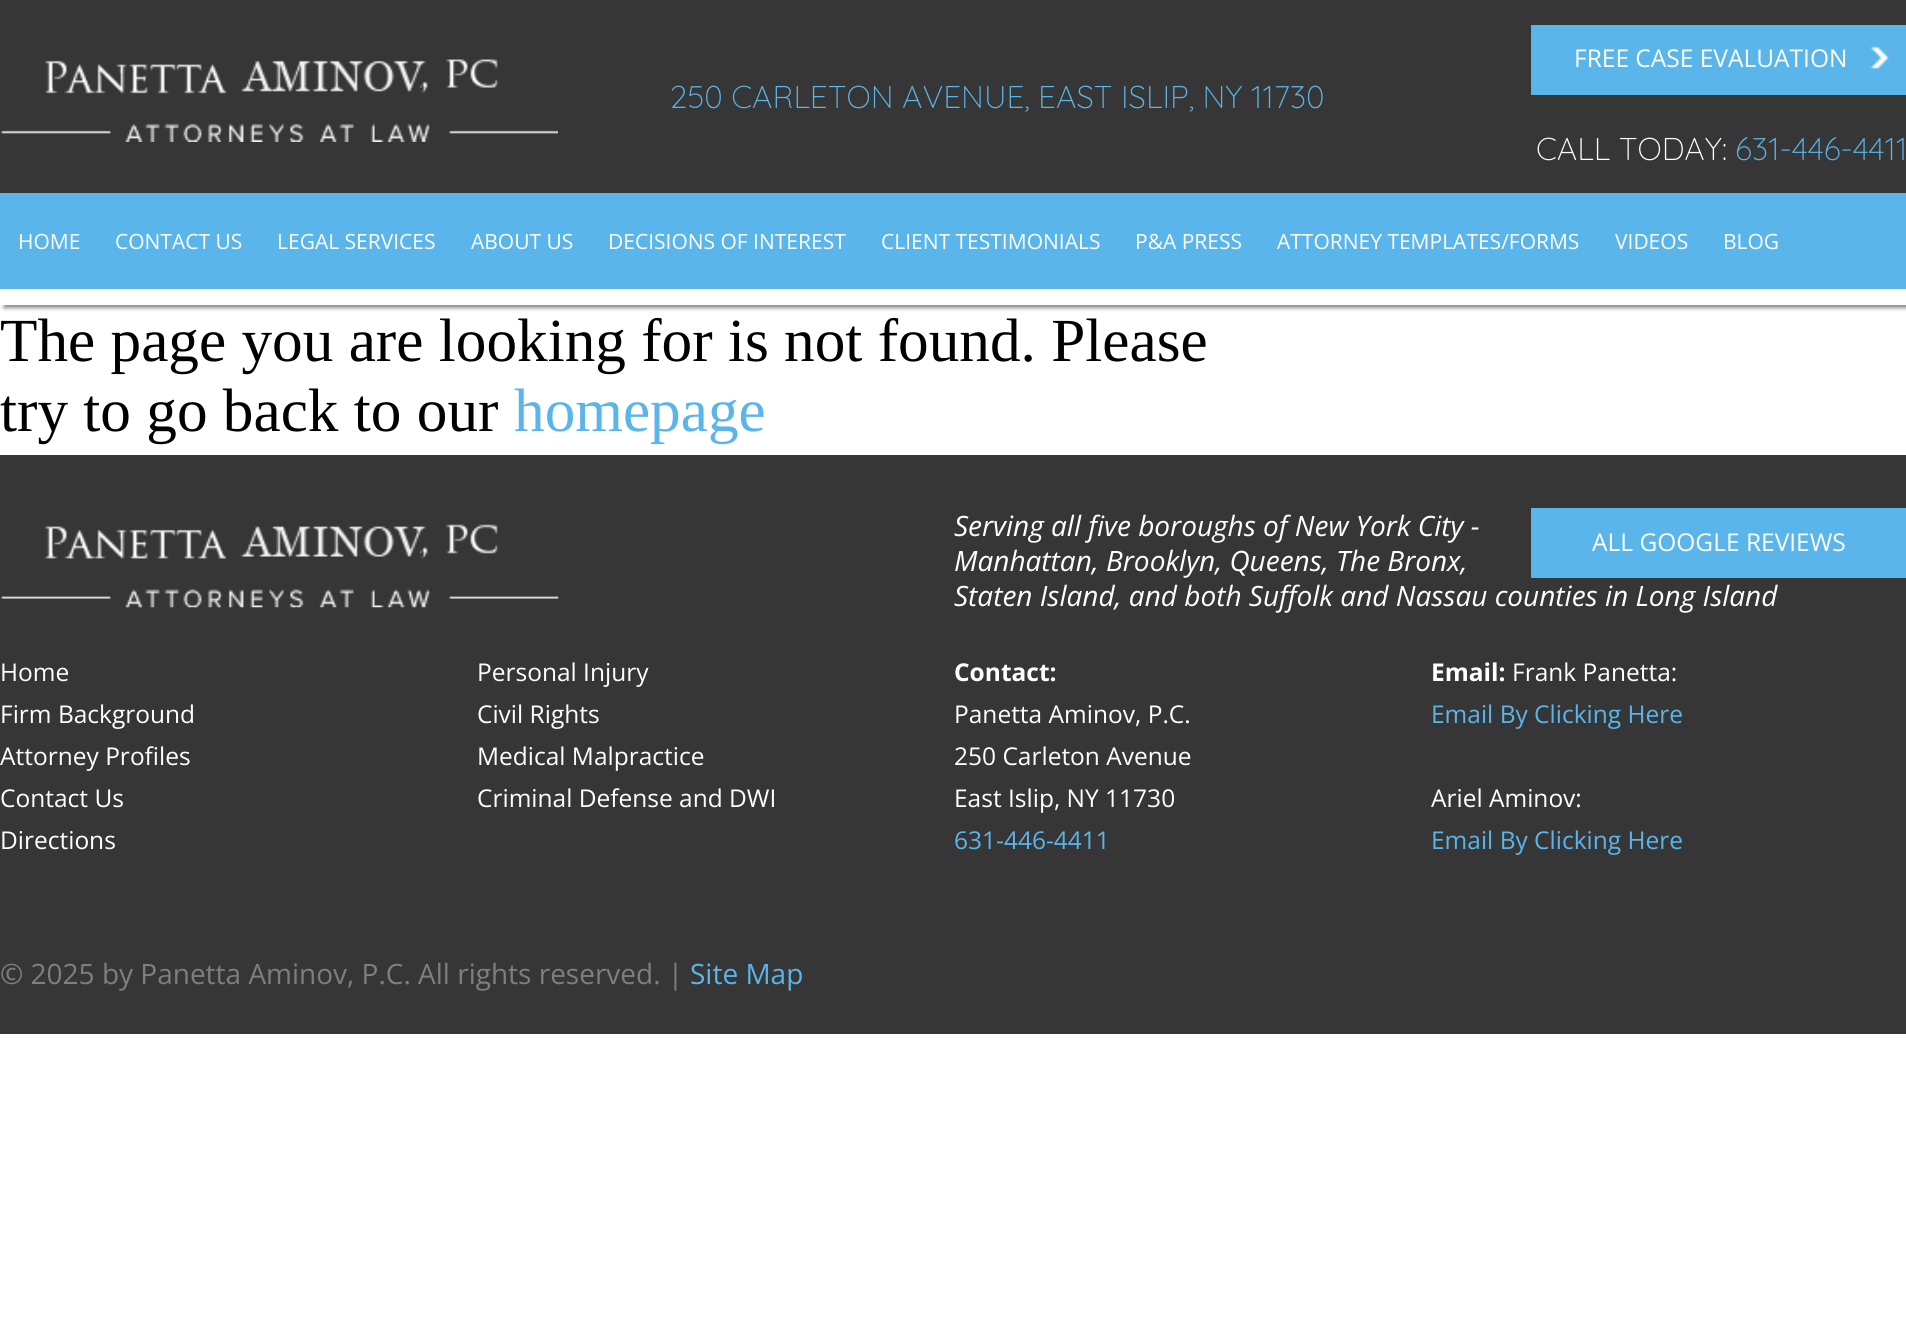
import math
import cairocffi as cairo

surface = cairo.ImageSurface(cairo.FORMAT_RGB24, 1906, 1320)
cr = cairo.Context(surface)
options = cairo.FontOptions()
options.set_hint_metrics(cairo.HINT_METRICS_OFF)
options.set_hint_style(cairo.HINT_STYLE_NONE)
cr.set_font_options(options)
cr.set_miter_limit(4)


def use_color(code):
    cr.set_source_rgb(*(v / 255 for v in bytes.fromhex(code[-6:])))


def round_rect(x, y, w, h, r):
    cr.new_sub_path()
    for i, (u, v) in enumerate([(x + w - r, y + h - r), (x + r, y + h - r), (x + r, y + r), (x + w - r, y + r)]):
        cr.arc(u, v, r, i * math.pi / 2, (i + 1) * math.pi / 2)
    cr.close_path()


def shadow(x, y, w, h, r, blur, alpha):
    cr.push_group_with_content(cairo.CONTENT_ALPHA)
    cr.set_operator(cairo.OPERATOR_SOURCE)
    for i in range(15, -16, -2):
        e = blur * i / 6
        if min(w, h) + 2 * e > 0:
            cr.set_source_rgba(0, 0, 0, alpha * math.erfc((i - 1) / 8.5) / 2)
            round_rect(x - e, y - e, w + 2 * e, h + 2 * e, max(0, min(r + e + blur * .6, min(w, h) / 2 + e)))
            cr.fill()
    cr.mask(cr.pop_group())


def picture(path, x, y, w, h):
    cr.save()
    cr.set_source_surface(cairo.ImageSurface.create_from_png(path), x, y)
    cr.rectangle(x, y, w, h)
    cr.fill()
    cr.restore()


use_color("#ffffff")
cr.paint()
use_color("#888888")
shadow(4, 4, 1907, 304, 0, 2, 1)
use_color("#363636")
cr.rectangle(0, 0, 1906, 193)
cr.fill()
use_color("#ffffff")
cr.rectangle(0, 289, 1906, 16)
cr.fill()
picture("img1.png", 1, 59, 557, 83)
cr.select_font_face("Quicksand Light")
cr.set_font_size(31.5)
use_color("#5ab5ea")
cr.move_to(670, 108)
cr.show_text("250 CARLETON AVENUE, EAST ISLIP, NY 11730")
cr.rectangle(1531, 25, 375, 70)
cr.fill()
cr.select_font_face("Open Sans")
cr.set_font_size(24.5)
use_color("#ffffff")
cr.move_to(1574, 67)
cr.show_text("FREE CASE EVALUATION")
picture("img2.png", 1870, 46, 19, 23)
cr.select_font_face("Quicksand Light")
cr.set_font_size(31.5)
cr.move_to(1536, 160)
cr.show_text("CALL TODAY:")
use_color("#5ab5ea")
cr.move_to(1735, 160)
cr.show_text("631-446-4411")
cr.rectangle(0, 193, 1906, 96)
cr.fill()
cr.select_font_face("Open Sans")
cr.set_font_size(21)
use_color("#ffffff")
cr.move_to(18, 249)
cr.show_text("HOME")
cr.move_to(115, 249)
cr.show_text("CONTACT US")
cr.move_to(277, 249)
cr.show_text("LEGAL SERVICES")
cr.move_to(471, 249)
cr.show_text("ABOUT US")
cr.move_to(608, 249)
cr.show_text("DECISIONS OF INTEREST")
cr.move_to(881, 249)
cr.show_text("CLIENT TESTIMONIALS")
cr.move_to(1135, 249)
cr.show_text("P&A PRESS")
cr.move_to(1277, 249)
cr.show_text("ATTORNEY TEMPLATES/FORMS")
cr.move_to(1615, 249)
cr.show_text("VIDEOS")
cr.move_to(1723, 249)
cr.show_text("BLOG")
cr.select_font_face("Liberation Serif")
cr.set_font_size(61.25)
use_color("#000000")
cr.move_to(0, 361)
cr.show_text("The page you are looking for is not found. Please")
cr.move_to(0, 431)
cr.show_text("try to go back to our")
use_color("#5ab5ea")
cr.move_to(514, 431)
cr.show_text("homepage")
use_color("#363636")
cr.rectangle(0, 455, 1906, 579)
cr.fill()
picture("img3.png", 1, 524, 558, 84)
cr.select_font_face("Open Sans")
cr.set_font_size(24.5)
use_color("#ffffff")
cr.move_to(0, 681)
cr.show_text("Home")
cr.move_to(0, 723)
cr.show_text("Firm Background")
cr.move_to(0, 765)
cr.show_text("Attorney Profiles")
cr.move_to(0, 807)
cr.show_text("Contact Us")
cr.move_to(0, 849)
cr.show_text("Directions")
cr.move_to(477, 681)
cr.show_text("Personal Injury")
cr.move_to(477, 723)
cr.show_text("Civil Rights")
cr.move_to(477, 765)
cr.show_text("Medical Malpractice")
cr.move_to(477, 807)
cr.show_text("Criminal Defense and DWI")
cr.select_font_face("Open Sans", cairo.FONT_SLANT_ITALIC)
cr.set_font_size(28)
cr.move_to(954, 536)
cr.show_text("Serving all five boroughs of New York City -")
cr.move_to(954, 571)
cr.show_text("Manhattan, Brooklyn, Queens, The Bronx,")
cr.move_to(954, 606)
cr.show_text("Staten Island, and both Suffolk and Nassau counties in Long Island")
use_color("#5ab5ea")
cr.rectangle(1531, 508, 375, 70)
cr.fill()
cr.select_font_face("Open Sans")
cr.set_font_size(24.5)
use_color("#ffffff")
cr.move_to(1592, 551)
cr.show_text("ALL GOOGLE REVIEWS")
cr.select_font_face("Open Sans", cairo.FONT_SLANT_NORMAL, cairo.FONT_WEIGHT_BOLD)
cr.move_to(954, 681)
cr.show_text("Contact:")
cr.select_font_face("Open Sans")
cr.move_to(954, 723)
cr.show_text("Panetta Aminov, P.C.")
cr.move_to(954, 765)
cr.show_text("250 Carleton Avenue")
cr.move_to(954, 807)
cr.show_text("East Islip, NY 11730")
use_color("#5ab5ea")
cr.move_to(954, 849)
cr.show_text("631-446-4411")
cr.select_font_face("Open Sans", cairo.FONT_SLANT_NORMAL, cairo.FONT_WEIGHT_BOLD)
use_color("#ffffff")
cr.move_to(1431, 681)
cr.show_text("Email:")
cr.select_font_face("Open Sans")
cr.move_to(1512, 681)
cr.show_text("Frank Panetta:")
use_color("#5ab5ea")
cr.move_to(1431, 723)
cr.show_text("Email By Clicking Here")
use_color("#ffffff")
cr.move_to(1431, 807)
cr.show_text("Ariel Aminov:")
use_color("#5ab5ea")
cr.move_to(1431, 849)
cr.show_text("Email By Clicking Here")
cr.set_font_size(28)
use_color("#7e7e7e")
cr.move_to(0, 984)
cr.show_text("© 2025 by Panetta Aminov, P.C. All rights reserved. |")
use_color("#5ab5ea")
cr.move_to(690, 984)
cr.show_text("Site Map")
surface.write_to_png("result.png")
